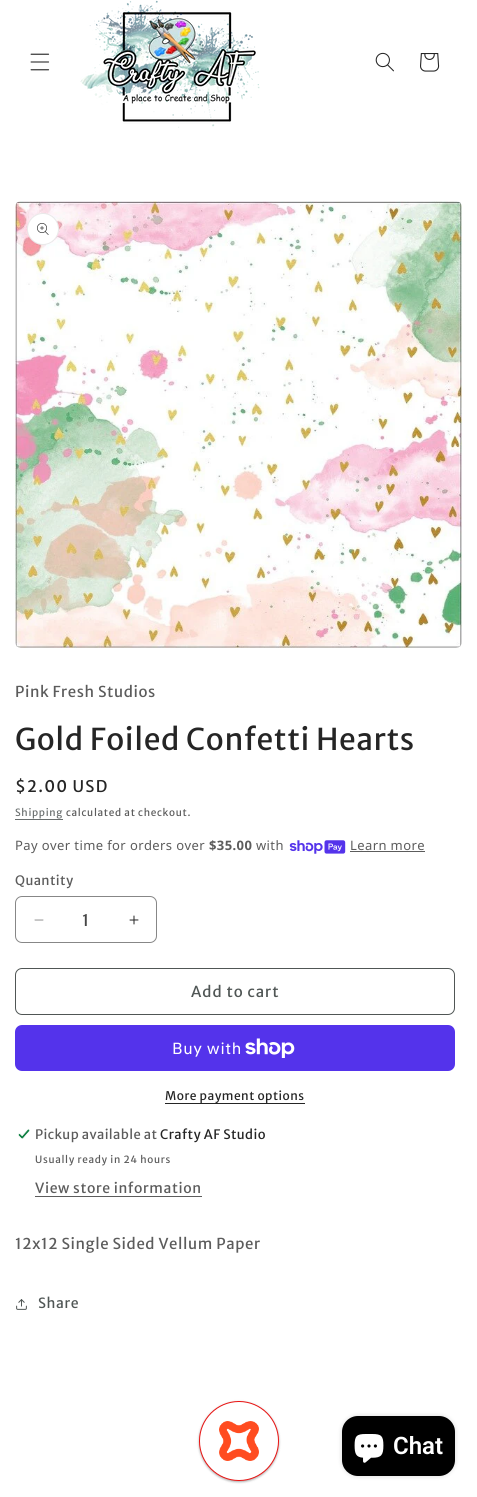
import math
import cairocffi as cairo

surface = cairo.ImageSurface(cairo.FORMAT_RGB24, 477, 1497)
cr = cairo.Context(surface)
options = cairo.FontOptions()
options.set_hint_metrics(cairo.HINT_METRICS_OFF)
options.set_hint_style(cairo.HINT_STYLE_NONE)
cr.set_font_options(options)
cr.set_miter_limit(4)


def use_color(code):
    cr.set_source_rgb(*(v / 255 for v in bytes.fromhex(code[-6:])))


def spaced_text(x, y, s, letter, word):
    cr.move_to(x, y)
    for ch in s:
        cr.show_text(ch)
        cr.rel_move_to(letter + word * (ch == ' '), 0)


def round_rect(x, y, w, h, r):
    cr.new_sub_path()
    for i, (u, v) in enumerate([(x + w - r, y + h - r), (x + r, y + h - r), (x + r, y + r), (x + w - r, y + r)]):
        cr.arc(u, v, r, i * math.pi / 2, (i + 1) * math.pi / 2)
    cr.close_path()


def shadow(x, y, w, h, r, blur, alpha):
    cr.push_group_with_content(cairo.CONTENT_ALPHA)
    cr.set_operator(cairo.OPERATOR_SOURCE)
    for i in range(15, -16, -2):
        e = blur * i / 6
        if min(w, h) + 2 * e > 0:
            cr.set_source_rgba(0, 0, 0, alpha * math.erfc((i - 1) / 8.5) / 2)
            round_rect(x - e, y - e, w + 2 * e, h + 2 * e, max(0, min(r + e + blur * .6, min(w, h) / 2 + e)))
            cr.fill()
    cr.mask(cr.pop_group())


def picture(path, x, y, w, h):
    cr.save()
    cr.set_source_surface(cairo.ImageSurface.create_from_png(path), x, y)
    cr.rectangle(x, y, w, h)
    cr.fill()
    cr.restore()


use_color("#ffffff")
cr.paint()
picture("img1.png", 30, 53, 20, 18)
picture("img2.png", 80, 0, 180, 128)
picture("img3.png", 375, 52, 19, 20)
picture("img4.png", 420, 53, 20, 19)
picture("img5.png", 15, 201, 447, 447)
use_color("#ffffff")
cr.arc(43, 229, 16, 0, 2 * math.pi)
cr.fill()
cr.arc(43, 229, 15.5, 0, 2 * math.pi)
cr.set_source_rgba(0.145, 0.145, 0.145, 0.1)
cr.set_line_width(1)
cr.stroke()
picture("img6.png", 37, 223, 12, 12)
cr.select_font_face("Merriweather Sans")
cr.set_font_size(15)
use_color("#5c5c5c")
spaced_text(15, 697, "Pink Fresh Studios", 0.6, 0)
cr.set_font_size(30)
use_color("#252525")
spaced_text(15, 750, "Gold Foiled Confetti Hearts", 0.6, 0)
cr.set_font_size(16)
spaced_text(15, 792, "$2.00 USD", 1.25, 0)
cr.set_font_size(10)
use_color("#6a6f6f")
spaced_text(15, 816, "Shipping", 0.7, 0)
cr.rectangle(15, 819, 48, 1)
cr.fill()
use_color("#5c5c5c")
spaced_text(66, 816, "calculated at checkout.", 0.7, 0)
cr.select_font_face("Noto Sans")
cr.set_font_size(13)
spaced_text(15, 850, "Pay over time for orders over", 0.4, 0)
cr.select_font_face("Noto Sans", cairo.FONT_SLANT_NORMAL, cairo.FONT_WEIGHT_BOLD)
spaced_text(209, 850, "$35.00", 0.4, 0)
cr.select_font_face("Noto Sans")
spaced_text(256, 850, "with", 0.4, 0)
picture("img7.png", 289, 840, 57, 14)
spaced_text(350, 850, "Learn more", 0.4, 0)
cr.rectangle(350, 851, 75, 1)
cr.fill()
cr.select_font_face("Merriweather Sans")
spaced_text(15, 885, "Quantity", 0.4, 0)
picture("img8.png", 34, 919, 10, 2)
picture("img9.png", 129, 915, 10, 10)
round_rect(15.5, 896.5, 141, 46, 6.5)
use_color("#878787")
cr.stroke()
cr.set_font_size(16)
use_color("#464646")
cr.move_to(82, 926)
cr.show_text("1")
round_rect(15.5, 968.5, 439, 46, 6.5)
use_color("#505655")
cr.stroke()
cr.set_font_size(15)
spaced_text(191, 997, "Add to cart", 1, 0)
use_color("#5433eb")
round_rect(15, 1025, 440, 46, 7)
cr.fill()
cr.select_font_face("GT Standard")
cr.set_font_size(16)
use_color("#ffffff")
spaced_text(172, 1054, "Buy with", 0.6, 0)
picture("img10.png", 245, 1038, 50, 20)
cr.select_font_face("Merriweather Sans")
cr.set_font_size(12)
use_color("#252525")
spaced_text(165, 1100, "More payment options", 0.5, 0)
cr.rectangle(165, 1103, 140, 1)
cr.fill()
picture("img11.png", 18, 1129, 12, 10)
cr.set_font_size(13)
use_color("#5c5c5c")
spaced_text(35, 1139, "Pickup available at", 0.4, 0)
use_color("#252525")
spaced_text(160, 1139, "Crafty AF Studio", 0.4, 0)
cr.set_font_size(10)
use_color("#5c5c5c")
spaced_text(35, 1163, "Usually ready in 24 hours", 0.7, 0)
cr.set_font_size(14)
spaced_text(35, 1193, "View store information", 0.6, 0)
cr.rectangle(35, 1196, 167, 1)
cr.fill()
cr.set_font_size(15)
spaced_text(15, 1249, "12x12 Single Sided Vellum Paper", 0.6, 0)
picture("img12.png", 16, 1299, 11, 11)
cr.set_font_size(14)
use_color("#505655")
spaced_text(38, 1308, "Share", 0.6, 0)
use_color("#000000")
shadow(199, 1402, 80, 80, 40, 1, 0.24)
shadow(199, 1402, 80, 80, 40, 1.5, 0.12)
use_color("#ffffff")
cr.arc(239, 1441, 39.5, 0, 2 * math.pi)
cr.fill_preserve()
use_color("#ea1110")
cr.stroke()
picture("img13.png", 219, 1421, 40, 40)
use_color("#000000")
shadow(342, 1416, 113, 60, 16, 2.5, 0.15)
use_color("#000000")
round_rect(342, 1416, 113, 60, 16)
cr.fill()
picture("img14.png", 354, 1434, 30, 29)
cr.select_font_face("Roboto SemiBold")
cr.set_font_size(24)
use_color("#ffffff")
cr.move_to(393, 1454)
cr.show_text("Chat")
surface.write_to_png("result.png")
